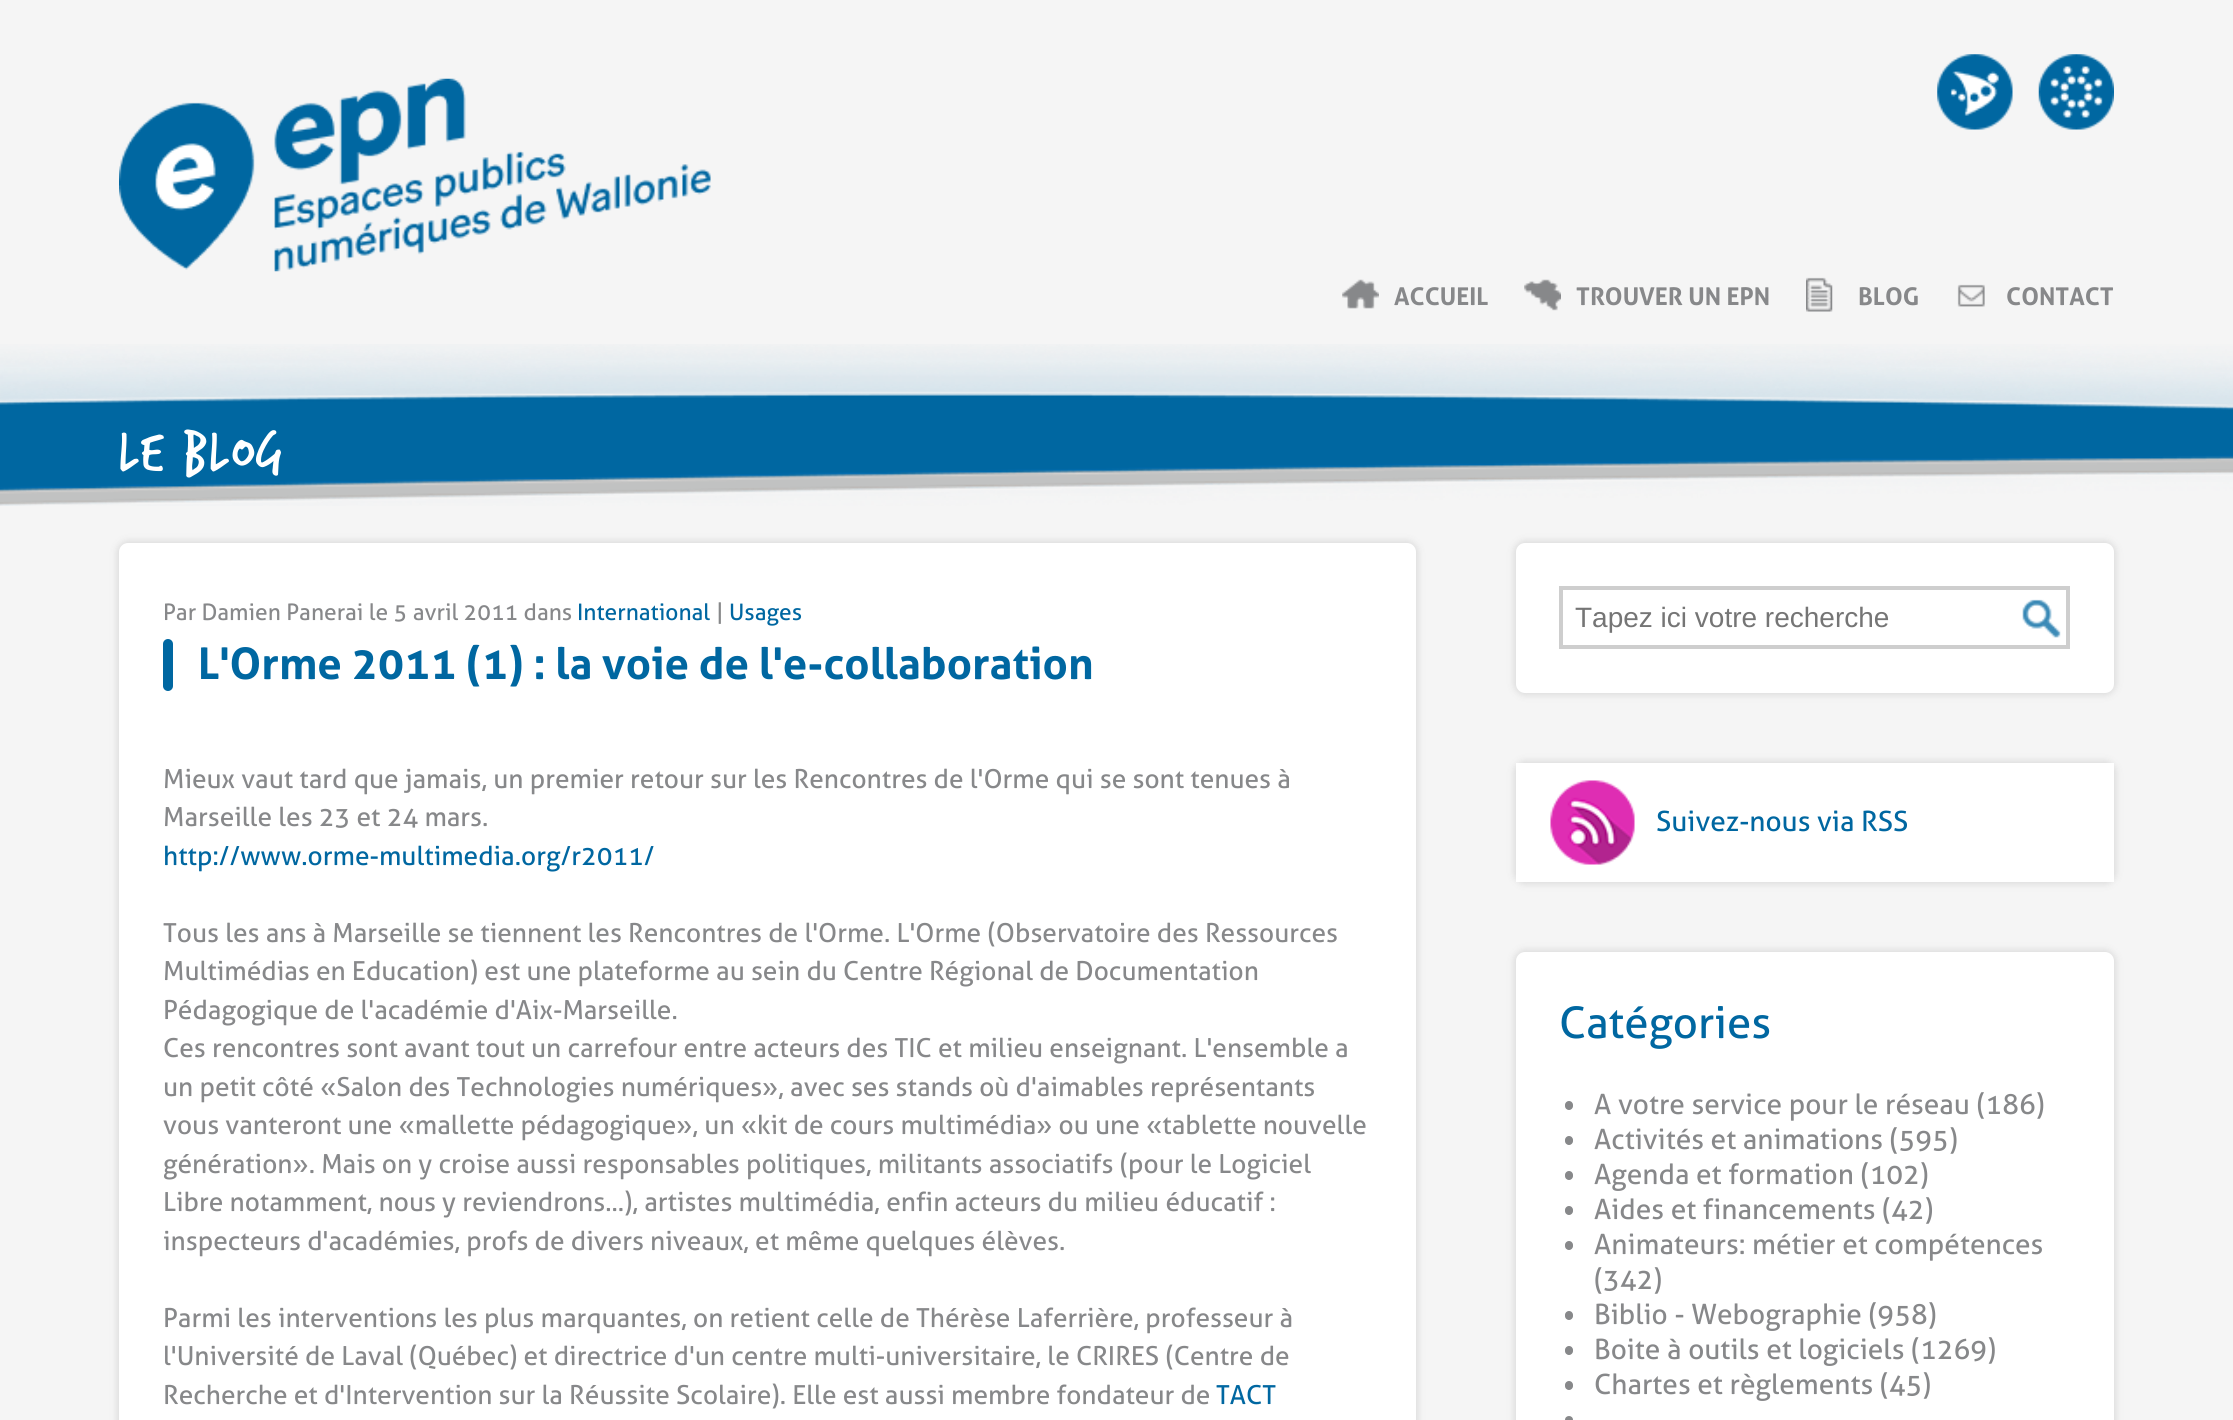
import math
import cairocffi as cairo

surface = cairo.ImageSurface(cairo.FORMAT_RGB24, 2233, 1420)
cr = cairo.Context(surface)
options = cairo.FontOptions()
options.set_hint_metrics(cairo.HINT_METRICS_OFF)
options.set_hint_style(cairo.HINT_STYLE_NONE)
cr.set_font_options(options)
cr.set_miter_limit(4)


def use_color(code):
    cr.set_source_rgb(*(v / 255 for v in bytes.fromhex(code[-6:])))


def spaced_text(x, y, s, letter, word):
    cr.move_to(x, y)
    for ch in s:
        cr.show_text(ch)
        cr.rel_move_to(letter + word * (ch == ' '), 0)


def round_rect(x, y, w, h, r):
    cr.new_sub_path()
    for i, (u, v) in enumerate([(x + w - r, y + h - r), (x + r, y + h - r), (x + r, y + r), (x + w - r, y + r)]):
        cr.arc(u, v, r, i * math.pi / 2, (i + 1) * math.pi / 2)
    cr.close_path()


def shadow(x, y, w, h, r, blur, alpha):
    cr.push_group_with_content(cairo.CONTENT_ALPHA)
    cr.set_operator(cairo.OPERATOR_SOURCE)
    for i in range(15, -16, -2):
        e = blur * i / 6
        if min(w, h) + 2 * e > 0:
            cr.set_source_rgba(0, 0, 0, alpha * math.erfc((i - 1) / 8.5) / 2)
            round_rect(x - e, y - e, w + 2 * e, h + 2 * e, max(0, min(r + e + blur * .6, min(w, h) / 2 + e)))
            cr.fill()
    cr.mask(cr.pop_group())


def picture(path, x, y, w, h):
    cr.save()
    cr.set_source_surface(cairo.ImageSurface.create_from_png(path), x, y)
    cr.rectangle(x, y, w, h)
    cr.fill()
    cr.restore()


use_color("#f5f5f5")
cr.paint()
picture("img1.png", 0, 344, 2233, 162)
picture("img2.png", 119, 78, 592, 194)
picture("img3.png", 1937, 54, 76, 76)
picture("img4.png", 2038, 54, 76, 76)
picture("img5.png", 1342, 279, 37, 30)
cr.select_font_face("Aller", cairo.FONT_SLANT_NORMAL, cairo.FONT_WEIGHT_BOLD)
cr.set_font_size(24.5)
use_color("#87888a")
cr.move_to(1394, 305)
cr.show_text("ACCUEIL")
picture("img6.png", 1524, 279, 37, 32)
cr.move_to(1576, 305)
cr.show_text("TROUVER UN EPN")
picture("img7.png", 1806, 277, 27, 35)
cr.move_to(1858, 305)
cr.show_text("BLOG")
picture("img8.png", 1957, 284, 28, 23)
cr.move_to(2006, 305)
cr.show_text("CONTACT")
cr.select_font_face("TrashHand")
cr.set_font_size(61)
use_color("#ffffff")
spaced_text(119, 469, "Le blog", 2.5, 0)
use_color("#dbdbdb")
shadow(117, 541, 1301, 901, 11, 3.5, 1)
use_color("#ffffff")
round_rect(119, 543, 1297, 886, 9)
cr.fill()
cr.select_font_face("Aller")
cr.set_font_size(22.75)
use_color("#87888a")
cr.move_to(163, 620)
cr.show_text("Par Damien Panerai le 5 avril 2011 dans")
use_color("#0067a1")
cr.move_to(577, 620)
cr.show_text("International")
use_color("#87888a")
cr.move_to(716, 620)
cr.show_text("|")
use_color("#0067a1")
cr.move_to(729, 620)
cr.show_text("Usages")
round_rect(163, 639, 10, 52, 5)
cr.fill()
cr.select_font_face("Aller", cairo.FONT_SLANT_NORMAL, cairo.FONT_WEIGHT_BOLD)
cr.set_font_size(43.75)
cr.move_to(198, 679)
cr.show_text("L'Orme 2011 (1) : la voie de l'e-collaboration")
cr.select_font_face("Aller")
cr.set_font_size(26.25)
use_color("#87888a")
cr.move_to(163, 788)
cr.show_text("Mieux vaut tard que jamais, un premier retour sur les Rencontres de l'Orme qui se sont tenues à")
cr.move_to(163, 826)
cr.show_text("Marseille les 23 et 24 mars.")
use_color("#0067a1")
cr.move_to(163, 865)
cr.show_text("http://www.orme-multimedia.org/r2011/")
use_color("#87888a")
cr.move_to(163, 942)
cr.show_text("Tous les ans à Marseille se tiennent les Rencontres de l'Orme. L'Orme (Observatoire des Ressources")
cr.move_to(163, 980)
cr.show_text("Multimédias en Education) est une plateforme au sein du Centre Régional de Documentation")
cr.move_to(163, 1019)
cr.show_text("Pédagogique de l'académie d'Aix-Marseille.")
cr.move_to(163, 1057)
cr.show_text("Ces rencontres sont avant tout un carrefour entre acteurs des TIC et milieu enseignant. L'ensemble a")
cr.move_to(163, 1096)
cr.show_text("un petit côté «Salon des Technologies numériques», avec ses stands où d'aimables représentants")
cr.move_to(163, 1134)
cr.show_text("vous vanteront une «mallette pédagogique», un «kit de cours multimédia» ou une «tablette nouvelle")
cr.move_to(163, 1173)
cr.show_text("génération». Mais on y croise aussi responsables politiques, militants associatifs (pour le Logiciel")
cr.move_to(163, 1211)
cr.show_text("Libre notamment, nous y reviendrons...), artistes multimédia, enfin acteurs du milieu éducatif :")
cr.move_to(163, 1250)
cr.show_text("inspecteurs d'académies, profs de divers niveaux, et même quelques élèves.")
cr.move_to(163, 1327)
cr.show_text("Parmi les interventions les plus marquantes, on retient celle de Thérèse Laferrière, professeur à")
cr.move_to(163, 1365)
cr.show_text("l'Université de Laval (Québec) et directrice d'un centre multi-universitaire, le CRIRES (Centre de")
cr.move_to(163, 1404)
cr.show_text("Recherche et d'Intervention sur la Réussite Scolaire). Elle est aussi membre fondateur de")
use_color("#0067a1")
cr.move_to(1216, 1404)
cr.show_text("TACT")
use_color("#dbdbdb")
shadow(1514, 541, 602, 154, 11, 3.5, 1)
use_color("#ffffff")
round_rect(1516, 543, 598, 150, 9)
cr.fill()
cr.rectangle(1561, 588, 507, 59)
use_color("#cecece")
cr.set_line_width(4)
cr.stroke()
cr.select_font_face("Liberation Sans")
cr.set_font_size(28)
use_color("#757575")
cr.move_to(1575, 627)
cr.show_text("Tapez ici votre recherche")
picture("img9.png", 2022, 599, 39, 39)
use_color("#dbdbdb")
shadow(1514, 761, 602, 123, 11, 3.5, 1)
use_color("#ffffff")
cr.rectangle(1516, 763, 598, 119)
cr.fill()
picture("img10.png", 1550, 780, 85, 85)
cr.select_font_face("Aller")
use_color("#0067a1")
cr.move_to(1656, 831)
cr.show_text("Suivez-nous via RSS")
use_color("#dbdbdb")
shadow(1514, 950, 602, 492, 11, 3.5, 1)
use_color("#ffffff")
round_rect(1516, 952, 598, 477, 9)
cr.fill()
cr.set_font_size(43.75)
use_color("#0067a1")
cr.move_to(1559, 1038)
cr.show_text("Catégories")
use_color("#87888a")
round_rect(1565, 1101, 8, 9, 4)
cr.fill()
cr.set_font_size(28)
cr.move_to(1594, 1114)
cr.show_text("A votre service pour le réseau (186)")
round_rect(1565, 1136, 8, 9, 4)
cr.fill()
cr.move_to(1594, 1149)
cr.show_text("Activités et animations (595)")
round_rect(1565, 1171, 8, 9, 4)
cr.fill()
cr.move_to(1594, 1184)
cr.show_text("Agenda et formation (102)")
round_rect(1565, 1206, 8, 9, 4)
cr.fill()
cr.move_to(1594, 1219)
cr.show_text("Aides et financements (42)")
round_rect(1565, 1241, 8, 9, 4)
cr.fill()
cr.move_to(1594, 1254)
cr.show_text("Animateurs: métier et compétences")
cr.move_to(1594, 1289)
cr.show_text("(342)")
round_rect(1565, 1311, 8, 9, 4)
cr.fill()
cr.move_to(1594, 1324)
cr.show_text("Biblio - Webographie (958)")
round_rect(1565, 1346, 8, 9, 4)
cr.fill()
cr.move_to(1594, 1359)
cr.show_text("Boite à outils et logiciels (1269)")
round_rect(1565, 1381, 8, 9, 4)
cr.fill()
cr.move_to(1594, 1394)
cr.show_text("Chartes et règlements (45)")
cr.new_path()
cr.arc(1569, 1420, 4, 0, 2 * math.pi)
cr.fill()
surface.write_to_png("result.png")
